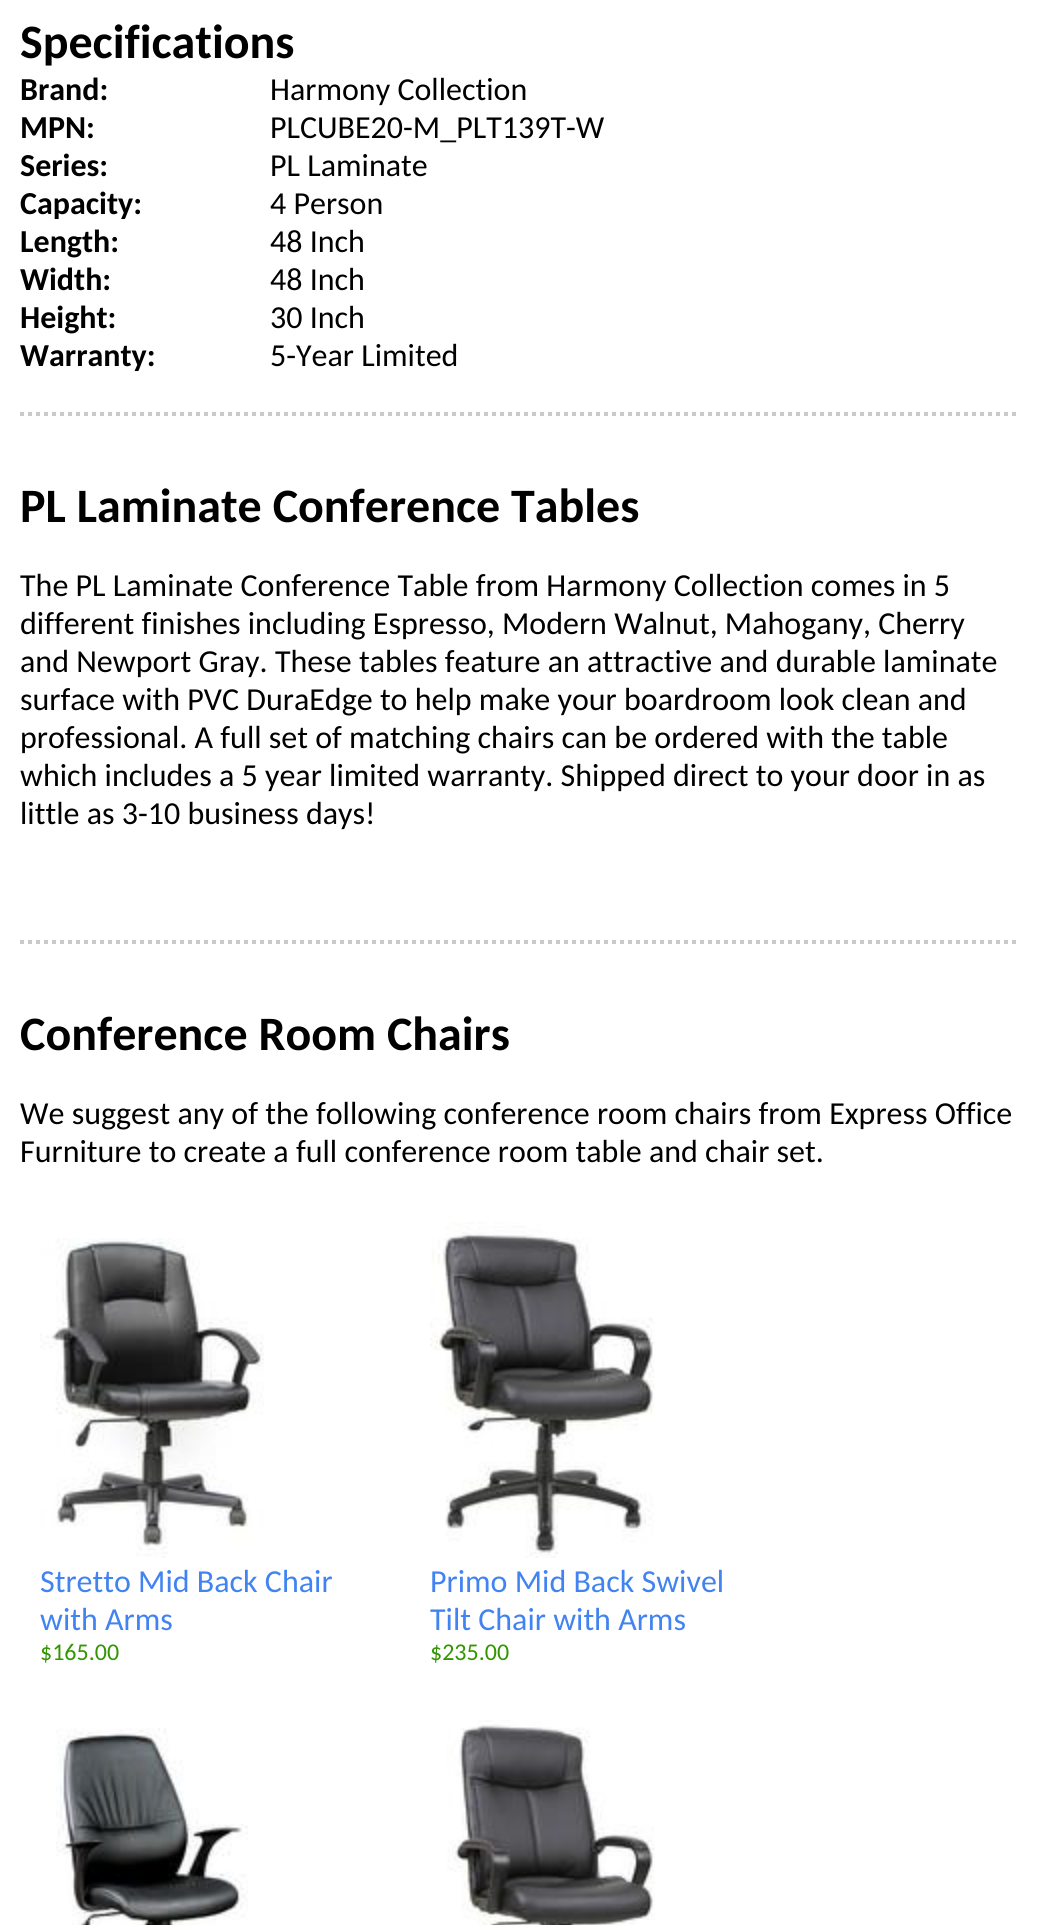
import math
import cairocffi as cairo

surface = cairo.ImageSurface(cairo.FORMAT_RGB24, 1037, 1925)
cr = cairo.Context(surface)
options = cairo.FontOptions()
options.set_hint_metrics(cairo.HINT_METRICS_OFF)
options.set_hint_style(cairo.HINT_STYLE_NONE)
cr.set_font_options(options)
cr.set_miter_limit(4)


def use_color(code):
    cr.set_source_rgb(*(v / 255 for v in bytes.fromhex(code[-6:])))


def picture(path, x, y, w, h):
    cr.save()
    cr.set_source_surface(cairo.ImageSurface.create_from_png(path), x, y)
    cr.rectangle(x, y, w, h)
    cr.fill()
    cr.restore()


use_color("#ffffff")
cr.paint()
cr.select_font_face("Carlito", cairo.FONT_SLANT_NORMAL, cairo.FONT_WEIGHT_BOLD)
cr.set_font_size(48)
use_color("#000000")
cr.move_to(20, 58)
cr.show_text("Specifications")
cr.set_font_size(32)
cr.move_to(20, 100)
cr.show_text("Brand:")
cr.select_font_face("Carlito")
cr.move_to(270, 100)
cr.show_text("Harmony Collection")
cr.select_font_face("Carlito", cairo.FONT_SLANT_NORMAL, cairo.FONT_WEIGHT_BOLD)
cr.move_to(20, 138)
cr.show_text("MPN:")
cr.select_font_face("Carlito")
cr.move_to(270, 138)
cr.show_text("PLCUBE20-M_PLT139T-W")
cr.select_font_face("Carlito", cairo.FONT_SLANT_NORMAL, cairo.FONT_WEIGHT_BOLD)
cr.move_to(20, 176)
cr.show_text("Series:")
cr.select_font_face("Carlito")
cr.move_to(270, 176)
cr.show_text("PL Laminate")
cr.select_font_face("Carlito", cairo.FONT_SLANT_NORMAL, cairo.FONT_WEIGHT_BOLD)
cr.move_to(20, 214)
cr.show_text("Capacity:")
cr.select_font_face("Carlito")
cr.move_to(270, 214)
cr.show_text("4 Person")
cr.select_font_face("Carlito", cairo.FONT_SLANT_NORMAL, cairo.FONT_WEIGHT_BOLD)
cr.move_to(20, 252)
cr.show_text("Length:")
cr.select_font_face("Carlito")
cr.move_to(270, 252)
cr.show_text("48 Inch")
cr.select_font_face("Carlito", cairo.FONT_SLANT_NORMAL, cairo.FONT_WEIGHT_BOLD)
cr.move_to(20, 290)
cr.show_text("Width:")
cr.select_font_face("Carlito")
cr.move_to(270, 290)
cr.show_text("48 Inch")
cr.select_font_face("Carlito", cairo.FONT_SLANT_NORMAL, cairo.FONT_WEIGHT_BOLD)
cr.move_to(20, 328)
cr.show_text("Height:")
cr.select_font_face("Carlito")
cr.move_to(270, 328)
cr.show_text("30 Inch")
cr.select_font_face("Carlito", cairo.FONT_SLANT_NORMAL, cairo.FONT_WEIGHT_BOLD)
cr.move_to(20, 366)
cr.show_text("Warranty:")
cr.select_font_face("Carlito")
cr.move_to(270, 366)
cr.show_text("5-Year Limited")
cr.new_path()
cr.move_to(20, 414)
cr.line_to(1018, 414)
use_color("#cacaca")
cr.set_line_width(4)
cr.set_dash([4, 4])
cr.stroke()
cr.select_font_face("Carlito", cairo.FONT_SLANT_NORMAL, cairo.FONT_WEIGHT_BOLD)
cr.set_font_size(48)
use_color("#000000")
cr.move_to(20, 522)
cr.show_text("PL Laminate Conference Tables")
cr.select_font_face("Carlito")
cr.set_font_size(32)
cr.move_to(20, 596)
cr.show_text("The PL Laminate Conference Table from Harmony Collection comes in 5")
cr.move_to(20, 634)
cr.show_text("different finishes including Espresso, Modern Walnut, Mahogany, Cherry")
cr.move_to(20, 672)
cr.show_text("and Newport Gray. These tables feature an attractive and durable laminate")
cr.move_to(20, 710)
cr.show_text("surface with PVC DuraEdge to help make your boardroom look clean and")
cr.move_to(20, 748)
cr.show_text("professional. A full set of matching chairs can be ordered with the table")
cr.move_to(20, 786)
cr.show_text("which includes a 5 year limited warranty. Shipped direct to your door in as")
cr.move_to(20, 824)
cr.show_text("little as 3-10 business days!")
cr.new_path()
cr.move_to(20, 942)
cr.line_to(1018, 942)
use_color("#cacaca")
cr.stroke()
cr.select_font_face("Carlito", cairo.FONT_SLANT_NORMAL, cairo.FONT_WEIGHT_BOLD)
cr.set_font_size(48)
use_color("#000000")
cr.move_to(20, 1050)
cr.show_text("Conference Room Chairs")
cr.select_font_face("Carlito")
cr.set_font_size(32)
cr.move_to(20, 1124)
cr.show_text("We suggest any of the following conference room chairs from Express Office")
cr.move_to(20, 1162)
cr.show_text("Furniture to create a full conference room table and chair set.")
picture("img1.png", 40, 1238, 224, 320)
use_color("#4083f1")
cr.move_to(40, 1592)
cr.show_text("Stretto Mid Back Chair")
cr.move_to(40, 1630)
cr.show_text("with Arms")
cr.set_font_size(24)
use_color("#319600")
cr.move_to(40, 1660)
cr.show_text("$165.00")
picture("img2.png", 430, 1222, 225, 336)
cr.set_font_size(32)
use_color("#4083f1")
cr.move_to(430, 1592)
cr.show_text("Primo Mid Back Swivel")
cr.move_to(430, 1630)
cr.show_text("Tilt Chair with Arms")
cr.set_font_size(24)
use_color("#319600")
cr.move_to(430, 1660)
cr.show_text("$235.00")
picture("img3.png", 56, 1728, 192, 197)
picture("img4.png", 447, 1720, 208, 205)
surface.write_to_png("result.png")
